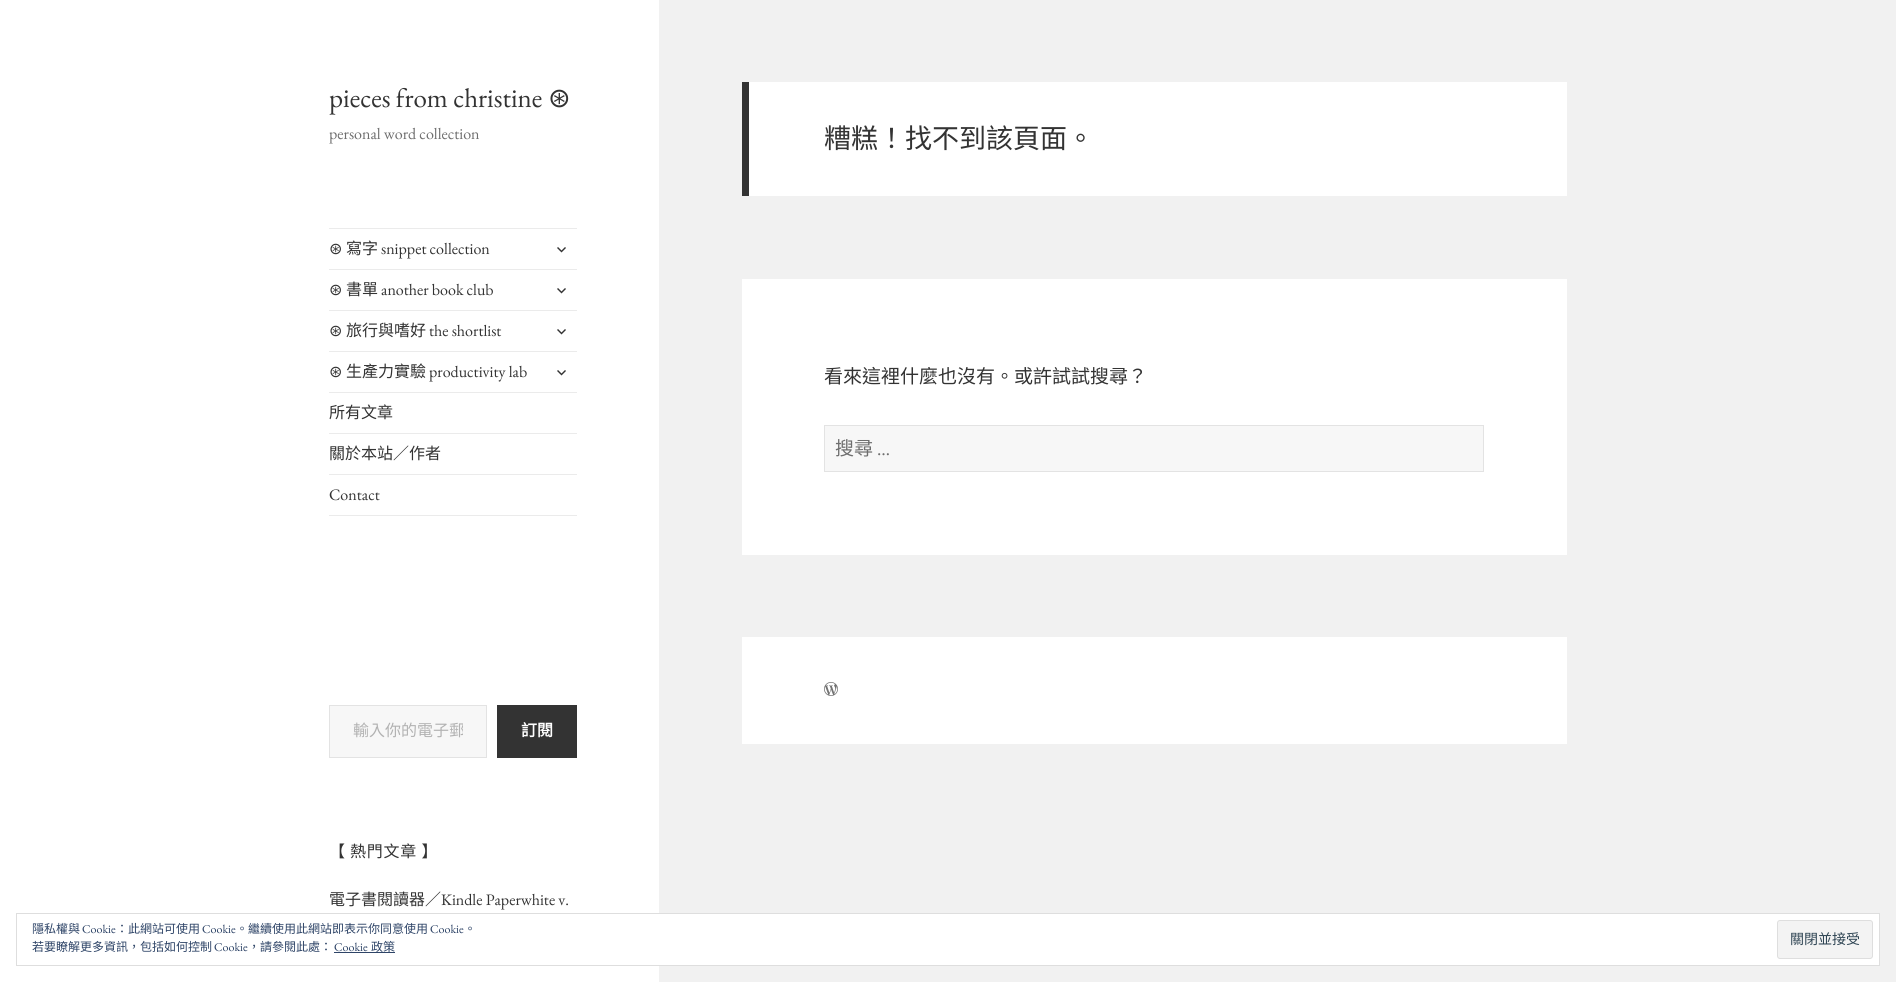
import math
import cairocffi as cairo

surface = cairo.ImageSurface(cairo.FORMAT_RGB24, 1896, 982)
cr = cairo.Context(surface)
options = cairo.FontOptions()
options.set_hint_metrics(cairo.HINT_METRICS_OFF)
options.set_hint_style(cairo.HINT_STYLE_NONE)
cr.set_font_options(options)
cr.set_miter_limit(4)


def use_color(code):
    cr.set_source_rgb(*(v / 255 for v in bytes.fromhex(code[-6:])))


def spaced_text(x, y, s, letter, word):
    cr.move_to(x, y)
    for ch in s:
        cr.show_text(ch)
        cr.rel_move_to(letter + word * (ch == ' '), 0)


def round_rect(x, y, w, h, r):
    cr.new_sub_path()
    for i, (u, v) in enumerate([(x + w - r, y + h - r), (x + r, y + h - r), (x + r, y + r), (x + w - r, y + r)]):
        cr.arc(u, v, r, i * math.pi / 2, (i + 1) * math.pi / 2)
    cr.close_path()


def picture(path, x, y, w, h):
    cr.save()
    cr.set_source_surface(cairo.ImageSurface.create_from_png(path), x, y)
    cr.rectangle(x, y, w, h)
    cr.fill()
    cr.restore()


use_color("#f1f1f1")
cr.paint()
use_color("#ffffff")
cr.rectangle(0, 0, 659, 982)
cr.fill()
cr.select_font_face("EB Garamond")
cr.set_font_size(27)
use_color("#333333")
cr.move_to(329, 107)
cr.show_text("pieces from christine")
cr.select_font_face("DejaVu Sans")
cr.move_to(548, 107)
cr.show_text("⊛")
cr.select_font_face("EB Garamond")
cr.set_font_size(16)
use_color("#6e6e6e")
cr.move_to(329, 139)
cr.show_text("personal word collection")
use_color("#ebebeb")
cr.rectangle(329, 228, 248, 1)
cr.fill()
cr.rectangle(329, 515, 248, 1)
cr.fill()
cr.select_font_face("DejaVu Sans")
use_color("#333333")
cr.move_to(329, 254)
cr.show_text("⊛")
cr.select_font_face("Noto Sans CJK TC")
cr.move_to(346, 254)
cr.show_text("寫字")
cr.select_font_face("EB Garamond")
cr.move_to(381, 254)
cr.show_text("snippet collection")
picture("img1.png", 557, 247, 9, 6)
use_color("#ebebeb")
cr.rectangle(329, 269, 248, 1)
cr.fill()
cr.select_font_face("DejaVu Sans")
use_color("#333333")
cr.move_to(329, 295)
cr.show_text("⊛")
cr.select_font_face("Noto Sans CJK TC")
cr.move_to(346, 295)
cr.show_text("書單")
cr.select_font_face("EB Garamond")
cr.move_to(381, 295)
cr.show_text("another book club")
picture("img1.png", 557, 288, 9, 6)
use_color("#ebebeb")
cr.rectangle(329, 310, 248, 1)
cr.fill()
cr.select_font_face("DejaVu Sans")
use_color("#333333")
cr.move_to(329, 336)
cr.show_text("⊛")
cr.select_font_face("Noto Sans CJK TC")
cr.move_to(346, 336)
cr.show_text("旅行與嗜好")
cr.select_font_face("EB Garamond")
cr.move_to(429, 336)
cr.show_text("the shortlist")
picture("img1.png", 557, 329, 9, 6)
use_color("#ebebeb")
cr.rectangle(329, 351, 248, 1)
cr.fill()
cr.select_font_face("DejaVu Sans")
use_color("#333333")
cr.move_to(329, 377)
cr.show_text("⊛")
cr.select_font_face("Noto Sans CJK TC")
cr.move_to(346, 377)
cr.show_text("生產力實驗")
cr.select_font_face("EB Garamond")
cr.move_to(429, 377)
cr.show_text("productivity lab")
picture("img1.png", 557, 370, 9, 6)
use_color("#ebebeb")
cr.rectangle(329, 392, 248, 1)
cr.fill()
cr.select_font_face("Noto Sans CJK TC")
use_color("#333333")
cr.move_to(329, 418)
cr.show_text("所有文章")
use_color("#ebebeb")
cr.rectangle(329, 433, 248, 1)
cr.fill()
use_color("#333333")
cr.move_to(329, 459)
cr.show_text("關於本站／作者")
use_color("#ebebeb")
cr.rectangle(329, 474, 248, 1)
cr.fill()
cr.select_font_face("EB Garamond")
use_color("#333333")
cr.move_to(329, 500)
cr.show_text("Contact")
use_color("#f7f7f7")
cr.rectangle(329.5, 705.5, 157, 52)
cr.fill_preserve()
use_color("#e3e3e3")
cr.set_line_width(1)
cr.stroke()
cr.save()
cr.rectangle(353, 717, 110, 24)
cr.clip()
cr.select_font_face("Noto Sans CJK TC")
use_color("#b2b2b2")
cr.move_to(353, 736)
cr.show_text("輸入你的電子郵")
cr.restore()
use_color("#333333")
cr.rectangle(497, 705, 80, 53)
cr.fill()
cr.select_font_face("Noto Sans CJK TC", cairo.FONT_SLANT_NORMAL, cairo.FONT_WEIGHT_BOLD)
use_color("#ffffff")
cr.move_to(521, 736)
cr.show_text("訂閱")
cr.select_font_face("Noto Sans CJK TC")
use_color("#333333")
spaced_text(329, 857, "【 熱門文章 】", 0.75, 0)
cr.move_to(329, 905)
cr.show_text("電子書閱讀器／")
cr.select_font_face("EB Garamond")
cr.move_to(441, 905)
cr.show_text("Kindle Paperwhite v.")
use_color("#ffffff")
cr.rectangle(749, 82, 818, 114)
cr.fill()
use_color("#333333")
cr.rectangle(742, 82, 7, 114)
cr.fill()
cr.select_font_face("Noto Sans CJK TC")
cr.set_font_size(27)
cr.move_to(824, 148)
cr.show_text("糟糕！找不到該頁面。")
use_color("#ffffff")
cr.rectangle(742, 279, 825, 276)
cr.fill()
cr.set_font_size(19)
use_color("#333333")
cr.move_to(824, 383)
cr.show_text("看來這裡什麼也沒有。或許試試搜尋？")
use_color("#f7f7f7")
cr.rectangle(824.5, 425.5, 659, 46)
cr.fill_preserve()
use_color("#e3e3e3")
cr.stroke()
use_color("#6e6e6e")
cr.move_to(835, 455)
cr.show_text("搜尋")
cr.select_font_face("EB Garamond")
cr.move_to(877, 455)
cr.show_text("…")
use_color("#ffffff")
cr.rectangle(742, 637, 825, 107)
cr.fill()
picture("img2.png", 824, 682, 14, 14)
cr.rectangle(659, 914, 1220, 51)
cr.fill()
cr.rectangle(16.5, 913.5, 1863, 52)
use_color("#dedede")
cr.stroke()
cr.select_font_face("Noto Sans CJK TC")
cr.set_font_size(12)
use_color("#2e4467")
cr.move_to(32, 933)
cr.show_text("隱私權與")
cr.select_font_face("EB Garamond")
cr.move_to(82, 933)
cr.show_text("Cookie")
cr.select_font_face("Noto Sans CJK TC")
cr.move_to(116, 933)
cr.show_text("：此網站可使用")
cr.select_font_face("EB Garamond")
cr.move_to(202, 933)
cr.show_text("Cookie")
cr.select_font_face("Noto Sans CJK TC")
cr.move_to(236, 933)
cr.show_text("。繼續使用此網站即表示你同意使用")
cr.select_font_face("EB Garamond")
cr.move_to(430, 933)
cr.show_text("Cookie")
cr.select_font_face("Noto Sans CJK TC")
cr.move_to(464, 933)
cr.show_text("。")
cr.move_to(32, 951)
cr.show_text("若要瞭解更多資訊，包括如何控制")
cr.select_font_face("EB Garamond")
cr.move_to(214, 951)
cr.show_text("Cookie")
cr.select_font_face("Noto Sans CJK TC")
cr.move_to(248, 951)
cr.show_text("，請參閱此處：")
cr.select_font_face("EB Garamond")
cr.move_to(334, 951)
cr.show_text("Cookie")
cr.rectangle(334, 952, 61, 1)
cr.fill()
cr.select_font_face("Noto Sans CJK TC")
cr.move_to(371, 951)
cr.show_text("政策")
use_color("#f3f3f3")
round_rect(1777.5, 920.5, 95, 38, 2.5)
cr.fill_preserve()
use_color("#dedede")
cr.stroke()
cr.set_font_size(14)
use_color("#2e4453")
cr.move_to(1790, 944)
cr.show_text("關閉並接受")
surface.write_to_png("result.png")
